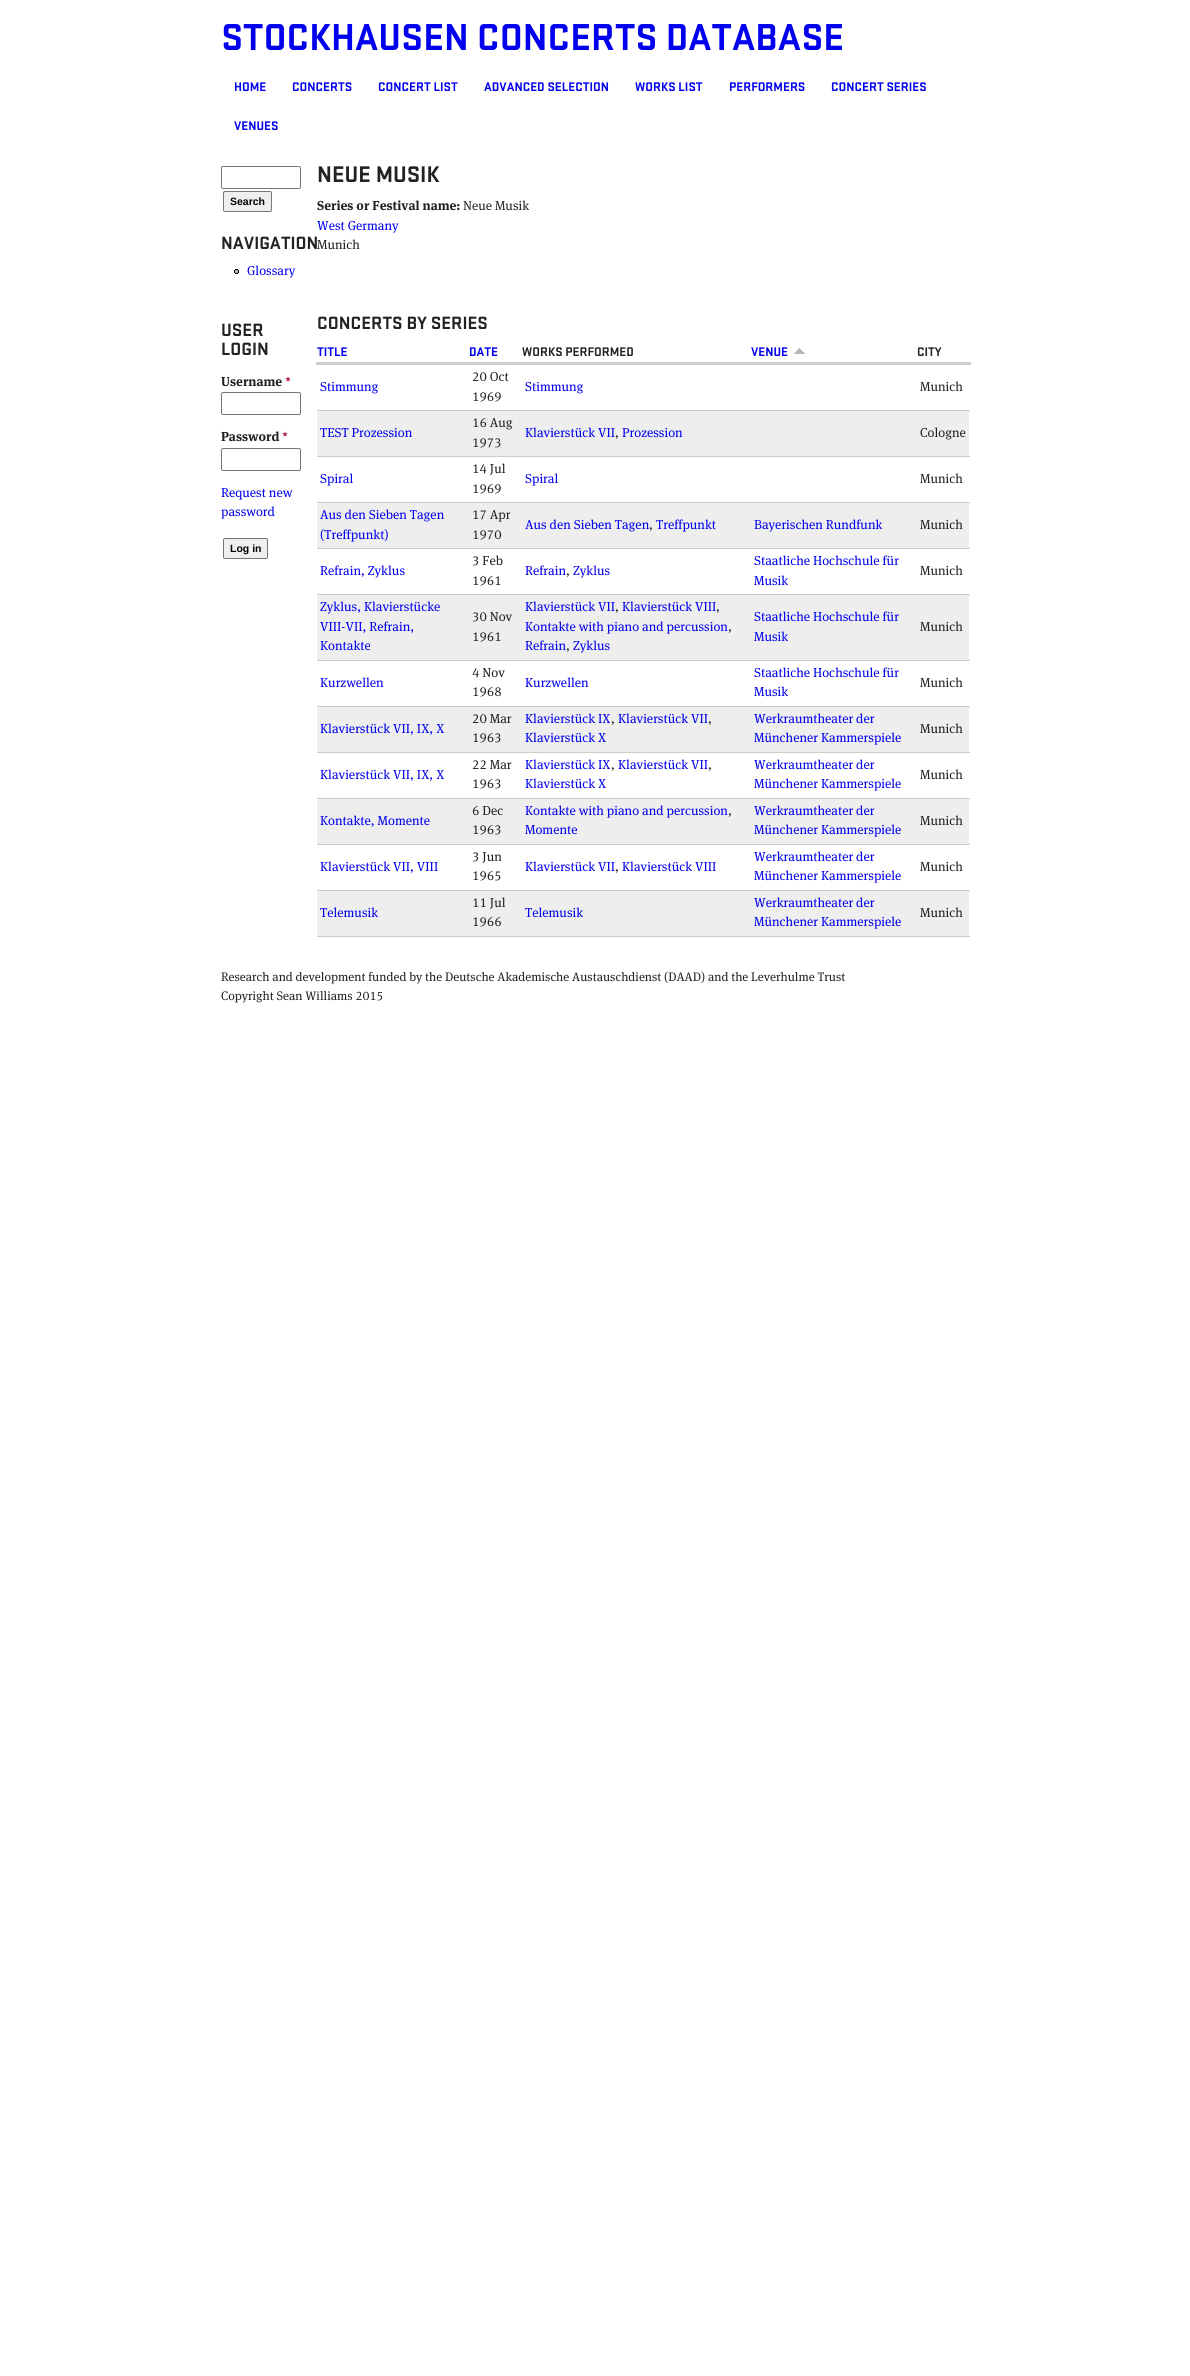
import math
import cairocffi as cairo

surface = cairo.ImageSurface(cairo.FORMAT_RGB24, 1190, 2376)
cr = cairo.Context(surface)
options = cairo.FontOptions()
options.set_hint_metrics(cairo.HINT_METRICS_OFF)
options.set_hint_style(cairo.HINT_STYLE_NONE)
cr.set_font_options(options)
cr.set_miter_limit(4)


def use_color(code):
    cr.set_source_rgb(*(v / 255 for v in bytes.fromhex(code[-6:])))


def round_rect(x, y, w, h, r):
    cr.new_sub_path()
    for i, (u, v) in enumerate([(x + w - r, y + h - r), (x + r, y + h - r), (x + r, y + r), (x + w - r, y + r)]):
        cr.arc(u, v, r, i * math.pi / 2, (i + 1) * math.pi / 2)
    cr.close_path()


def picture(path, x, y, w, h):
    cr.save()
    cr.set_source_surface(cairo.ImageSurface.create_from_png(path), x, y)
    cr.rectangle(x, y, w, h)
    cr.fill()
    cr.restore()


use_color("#ffffff")
cr.paint()
cr.select_font_face("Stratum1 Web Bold", cairo.FONT_SLANT_NORMAL, cairo.FONT_WEIGHT_BOLD)
cr.set_font_size(39)
use_color("#0000ee")
cr.move_to(221, 50)
cr.show_text("STOCKHAUSEN CONCERTS DATABASE")
cr.set_font_size(13)
cr.move_to(234, 91)
cr.show_text("HOME")
cr.move_to(292, 91)
cr.show_text("CONCERTS")
cr.move_to(378, 91)
cr.show_text("CONCERT LIST")
cr.move_to(484, 91)
cr.show_text("ADVANCED SELECTION")
cr.move_to(635, 91)
cr.show_text("WORKS LIST")
cr.move_to(729, 91)
cr.show_text("PERFORMERS")
cr.move_to(831, 91)
cr.show_text("CONCERT SERIES")
cr.move_to(234, 130)
cr.show_text("VENUES")
round_rect(221.5, 166.5, 79, 22, 1.5)
use_color("#767676")
cr.set_line_width(1)
cr.stroke()
use_color("#efefef")
round_rect(223.5, 191.5, 48, 20, 1.5)
cr.fill_preserve()
use_color("#767676")
cr.stroke()
cr.select_font_face("Liberation Sans", cairo.FONT_SLANT_NORMAL, cairo.FONT_WEIGHT_BOLD)
cr.set_font_size(10.5)
use_color("#000000")
cr.move_to(230, 205)
cr.show_text("Search")
cr.select_font_face("Stratum1 Web Bold", cairo.FONT_SLANT_NORMAL, cairo.FONT_WEIGHT_BOLD)
cr.set_font_size(18.5)
use_color("#222222")
cr.move_to(221, 249)
cr.show_text("NAVIGATION")
picture("img1.png", 234, 269, 5, 5)
cr.select_font_face("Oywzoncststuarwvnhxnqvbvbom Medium")
cr.set_font_size(13)
use_color("#0000ee")
cr.move_to(247, 275)
cr.show_text("Glossary")
cr.select_font_face("Stratum1 Web Bold", cairo.FONT_SLANT_NORMAL, cairo.FONT_WEIGHT_BOLD)
cr.set_font_size(18.5)
use_color("#222222")
cr.move_to(221, 336)
cr.show_text("USER")
cr.move_to(221, 355)
cr.show_text("LOGIN")
cr.select_font_face("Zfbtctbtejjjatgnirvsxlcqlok", cairo.FONT_SLANT_NORMAL, cairo.FONT_WEIGHT_BOLD)
cr.set_font_size(13)
cr.move_to(221, 386)
cr.show_text("Username")
use_color("#aa1144")
cr.move_to(285, 386)
cr.show_text("*")
round_rect(221.5, 392.5, 79, 22, 1.5)
use_color("#767676")
cr.stroke()
use_color("#222222")
cr.move_to(221, 441)
cr.show_text("Password")
use_color("#aa1144")
cr.move_to(282, 441)
cr.show_text("*")
round_rect(221.5, 448.5, 79, 22, 1.5)
use_color("#767676")
cr.stroke()
cr.select_font_face("Oywzoncststuarwvnhxnqvbvbom Medium")
use_color("#0000ee")
cr.move_to(221, 497)
cr.show_text("Request new")
cr.move_to(221, 516)
cr.show_text("password")
use_color("#efefef")
round_rect(223.5, 538.5, 44, 20, 1.5)
cr.fill_preserve()
use_color("#767676")
cr.stroke()
cr.select_font_face("Liberation Sans", cairo.FONT_SLANT_NORMAL, cairo.FONT_WEIGHT_BOLD)
cr.set_font_size(10.5)
use_color("#000000")
cr.move_to(230, 552)
cr.show_text("Log in")
cr.select_font_face("Stratum1 Web Bold", cairo.FONT_SLANT_NORMAL, cairo.FONT_WEIGHT_BOLD)
cr.set_font_size(23.5)
use_color("#222222")
cr.move_to(317, 182)
cr.show_text("NEUE MUSIK")
cr.select_font_face("Zfbtctbtejjjatgnirvsxlcqlok", cairo.FONT_SLANT_NORMAL, cairo.FONT_WEIGHT_BOLD)
cr.set_font_size(13)
cr.move_to(317, 210)
cr.show_text("Series or Festival name:")
cr.select_font_face("Oywzoncststuarwvnhxnqvbvbom Medium")
cr.move_to(463, 210)
cr.show_text("Neue Musik")
use_color("#0000ee")
cr.move_to(317, 230)
cr.show_text("West Germany")
use_color("#222222")
cr.move_to(317, 249)
cr.show_text("Munich")
cr.select_font_face("Stratum1 Web Bold", cairo.FONT_SLANT_NORMAL, cairo.FONT_WEIGHT_BOLD)
cr.set_font_size(18.5)
cr.move_to(317, 329)
cr.show_text("CONCERTS BY SERIES")
cr.set_font_size(13)
use_color("#0000ee")
cr.move_to(317, 356)
cr.show_text("TITLE")
cr.move_to(469, 356)
cr.show_text("DATE")
use_color("#222222")
cr.move_to(522, 356)
cr.show_text("WORKS PERFORMED")
use_color("#0000ee")
cr.move_to(751, 356)
cr.show_text("VENUE")
picture("img2.png", 794, 348, 11, 6)
use_color("#cccccc")
cr.rectangle(316, 362, 655, 3)
cr.fill()
use_color("#222222")
cr.move_to(917, 356)
cr.show_text("CITY")
use_color("#cccccc")
cr.rectangle(317, 410, 653, 1)
cr.fill()
cr.select_font_face("Oywzoncststuarwvnhxnqvbvbom Medium")
use_color("#0000ee")
cr.move_to(320, 391)
cr.show_text("Stimmung")
use_color("#222222")
cr.move_to(472, 381)
cr.show_text("20 Oct")
cr.move_to(472, 401)
cr.show_text("1969")
use_color("#0000ee")
cr.move_to(525, 391)
cr.show_text("Stimmung")
use_color("#222222")
cr.move_to(920, 391)
cr.show_text("Munich")
use_color("#eeeeee")
cr.rectangle(317, 411, 652, 45)
cr.fill()
use_color("#cccccc")
cr.rectangle(317, 456, 653, 1)
cr.fill()
use_color("#0000ee")
cr.move_to(320, 437)
cr.show_text("TEST Prozession")
use_color("#222222")
cr.move_to(472, 427)
cr.show_text("16 Aug")
cr.move_to(472, 447)
cr.show_text("1973")
use_color("#0000ee")
cr.move_to(525, 437)
cr.show_text("Klavierstück VII")
use_color("#222222")
cr.move_to(615, 437)
cr.show_text(",")
use_color("#0000ee")
cr.move_to(622, 437)
cr.show_text("Prozession")
use_color("#222222")
cr.move_to(920, 437)
cr.show_text("Cologne")
use_color("#cccccc")
cr.rectangle(317, 502, 653, 1)
cr.fill()
use_color("#0000ee")
cr.move_to(320, 483)
cr.show_text("Spiral")
use_color("#222222")
cr.move_to(472, 473)
cr.show_text("14 Jul")
cr.move_to(472, 493)
cr.show_text("1969")
use_color("#0000ee")
cr.move_to(525, 483)
cr.show_text("Spiral")
use_color("#222222")
cr.move_to(920, 483)
cr.show_text("Munich")
use_color("#eeeeee")
cr.rectangle(317, 503, 652, 45)
cr.fill()
use_color("#cccccc")
cr.rectangle(317, 548, 653, 1)
cr.fill()
use_color("#0000ee")
cr.move_to(320, 519)
cr.show_text("Aus den Sieben Tagen")
cr.move_to(320, 539)
cr.show_text("(Treffpunkt)")
use_color("#222222")
cr.move_to(472, 519)
cr.show_text("17 Apr")
cr.move_to(472, 539)
cr.show_text("1970")
use_color("#0000ee")
cr.move_to(525, 529)
cr.show_text("Aus den Sieben Tagen")
use_color("#222222")
cr.move_to(649, 529)
cr.show_text(",")
use_color("#0000ee")
cr.move_to(656, 529)
cr.show_text("Treffpunkt")
cr.move_to(754, 529)
cr.show_text("Bayerischen Rundfunk")
use_color("#222222")
cr.move_to(920, 529)
cr.show_text("Munich")
use_color("#cccccc")
cr.rectangle(317, 594, 653, 1)
cr.fill()
use_color("#0000ee")
cr.move_to(320, 575)
cr.show_text("Refrain, Zyklus")
use_color("#222222")
cr.move_to(472, 565)
cr.show_text("3 Feb")
cr.move_to(472, 585)
cr.show_text("1961")
use_color("#0000ee")
cr.move_to(525, 575)
cr.show_text("Refrain")
use_color("#222222")
cr.move_to(566, 575)
cr.show_text(",")
use_color("#0000ee")
cr.move_to(573, 575)
cr.show_text("Zyklus")
cr.move_to(754, 565)
cr.show_text("Staatliche Hochschule für")
cr.move_to(754, 585)
cr.show_text("Musik")
use_color("#222222")
cr.move_to(920, 575)
cr.show_text("Munich")
use_color("#eeeeee")
cr.rectangle(317, 595, 652, 65)
cr.fill()
use_color("#cccccc")
cr.rectangle(317, 660, 653, 1)
cr.fill()
use_color("#0000ee")
cr.move_to(320, 611)
cr.show_text("Zyklus, Klavierstücke")
cr.move_to(320, 631)
cr.show_text("VIII-VII, Refrain,")
cr.move_to(320, 650)
cr.show_text("Kontakte")
use_color("#222222")
cr.move_to(472, 621)
cr.show_text("30 Nov")
cr.move_to(472, 641)
cr.show_text("1961")
use_color("#0000ee")
cr.move_to(525, 611)
cr.show_text("Klavierstück VII")
use_color("#222222")
cr.move_to(615, 611)
cr.show_text(",")
use_color("#0000ee")
cr.move_to(622, 611)
cr.show_text("Klavierstück VIII")
use_color("#222222")
cr.move_to(716, 611)
cr.show_text(",")
use_color("#0000ee")
cr.move_to(525, 631)
cr.show_text("Kontakte with piano and percussion")
use_color("#222222")
cr.move_to(728, 631)
cr.show_text(",")
use_color("#0000ee")
cr.move_to(525, 650)
cr.show_text("Refrain")
use_color("#222222")
cr.move_to(566, 650)
cr.show_text(",")
use_color("#0000ee")
cr.move_to(573, 650)
cr.show_text("Zyklus")
cr.move_to(754, 621)
cr.show_text("Staatliche Hochschule für")
cr.move_to(754, 641)
cr.show_text("Musik")
use_color("#222222")
cr.move_to(920, 631)
cr.show_text("Munich")
use_color("#cccccc")
cr.rectangle(317, 706, 653, 1)
cr.fill()
use_color("#0000ee")
cr.move_to(320, 687)
cr.show_text("Kurzwellen")
use_color("#222222")
cr.move_to(472, 677)
cr.show_text("4 Nov")
cr.move_to(472, 696)
cr.show_text("1968")
use_color("#0000ee")
cr.move_to(525, 687)
cr.show_text("Kurzwellen")
cr.move_to(754, 677)
cr.show_text("Staatliche Hochschule für")
cr.move_to(754, 696)
cr.show_text("Musik")
use_color("#222222")
cr.move_to(920, 687)
cr.show_text("Munich")
use_color("#eeeeee")
cr.rectangle(317, 707, 652, 45)
cr.fill()
use_color("#cccccc")
cr.rectangle(317, 752, 653, 1)
cr.fill()
use_color("#0000ee")
cr.move_to(320, 733)
cr.show_text("Klavierstück VII, IX, X")
use_color("#222222")
cr.move_to(472, 723)
cr.show_text("20 Mar")
cr.move_to(472, 742)
cr.show_text("1963")
use_color("#0000ee")
cr.move_to(525, 723)
cr.show_text("Klavierstück IX")
use_color("#222222")
cr.move_to(611, 723)
cr.show_text(",")
use_color("#0000ee")
cr.move_to(618, 723)
cr.show_text("Klavierstück VII")
use_color("#222222")
cr.move_to(708, 723)
cr.show_text(",")
use_color("#0000ee")
cr.move_to(525, 742)
cr.show_text("Klavierstück X")
cr.move_to(754, 723)
cr.show_text("Werkraumtheater der")
cr.move_to(754, 742)
cr.show_text("Münchener Kammerspiele")
use_color("#222222")
cr.move_to(920, 733)
cr.show_text("Munich")
use_color("#cccccc")
cr.rectangle(317, 798, 653, 1)
cr.fill()
use_color("#0000ee")
cr.move_to(320, 779)
cr.show_text("Klavierstück VII, IX, X")
use_color("#222222")
cr.move_to(472, 769)
cr.show_text("22 Mar")
cr.move_to(472, 788)
cr.show_text("1963")
use_color("#0000ee")
cr.move_to(525, 769)
cr.show_text("Klavierstück IX")
use_color("#222222")
cr.move_to(611, 769)
cr.show_text(",")
use_color("#0000ee")
cr.move_to(618, 769)
cr.show_text("Klavierstück VII")
use_color("#222222")
cr.move_to(708, 769)
cr.show_text(",")
use_color("#0000ee")
cr.move_to(525, 788)
cr.show_text("Klavierstück X")
cr.move_to(754, 769)
cr.show_text("Werkraumtheater der")
cr.move_to(754, 788)
cr.show_text("Münchener Kammerspiele")
use_color("#222222")
cr.move_to(920, 779)
cr.show_text("Munich")
use_color("#eeeeee")
cr.rectangle(317, 799, 652, 45)
cr.fill()
use_color("#cccccc")
cr.rectangle(317, 844, 653, 1)
cr.fill()
use_color("#0000ee")
cr.move_to(320, 825)
cr.show_text("Kontakte, Momente")
use_color("#222222")
cr.move_to(472, 815)
cr.show_text("6 Dec")
cr.move_to(472, 834)
cr.show_text("1963")
use_color("#0000ee")
cr.move_to(525, 815)
cr.show_text("Kontakte with piano and percussion")
use_color("#222222")
cr.move_to(728, 815)
cr.show_text(",")
use_color("#0000ee")
cr.move_to(525, 834)
cr.show_text("Momente")
cr.move_to(754, 815)
cr.show_text("Werkraumtheater der")
cr.move_to(754, 834)
cr.show_text("Münchener Kammerspiele")
use_color("#222222")
cr.move_to(920, 825)
cr.show_text("Munich")
use_color("#cccccc")
cr.rectangle(317, 890, 653, 1)
cr.fill()
use_color("#0000ee")
cr.move_to(320, 871)
cr.show_text("Klavierstück VII, VIII")
use_color("#222222")
cr.move_to(472, 861)
cr.show_text("3 Jun")
cr.move_to(472, 880)
cr.show_text("1965")
use_color("#0000ee")
cr.move_to(525, 871)
cr.show_text("Klavierstück VII")
use_color("#222222")
cr.move_to(615, 871)
cr.show_text(",")
use_color("#0000ee")
cr.move_to(622, 871)
cr.show_text("Klavierstück VIII")
cr.move_to(754, 861)
cr.show_text("Werkraumtheater der")
cr.move_to(754, 880)
cr.show_text("Münchener Kammerspiele")
use_color("#222222")
cr.move_to(920, 871)
cr.show_text("Munich")
use_color("#eeeeee")
cr.rectangle(317, 891, 652, 45)
cr.fill()
use_color("#cccccc")
cr.rectangle(317, 936, 653, 1)
cr.fill()
use_color("#0000ee")
cr.move_to(320, 917)
cr.show_text("Telemusik")
use_color("#222222")
cr.move_to(472, 907)
cr.show_text("11 Jul")
cr.move_to(472, 926)
cr.show_text("1966")
use_color("#0000ee")
cr.move_to(525, 917)
cr.show_text("Telemusik")
cr.move_to(754, 907)
cr.show_text("Werkraumtheater der")
cr.move_to(754, 926)
cr.show_text("Münchener Kammerspiele")
use_color("#222222")
cr.move_to(920, 917)
cr.show_text("Munich")
cr.set_font_size(12.35)
cr.move_to(221, 981)
cr.show_text("Research and development funded by the Deutsche Akademische Austauschdienst (DAAD) and the Leverhulme Trust")
cr.move_to(221, 1000)
cr.show_text("Copyright Sean Williams 2015")
surface.write_to_png("result.png")
